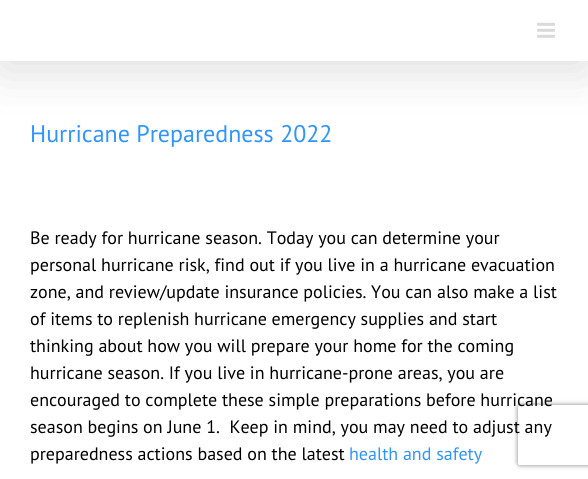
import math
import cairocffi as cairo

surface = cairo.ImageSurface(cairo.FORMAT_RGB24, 588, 479)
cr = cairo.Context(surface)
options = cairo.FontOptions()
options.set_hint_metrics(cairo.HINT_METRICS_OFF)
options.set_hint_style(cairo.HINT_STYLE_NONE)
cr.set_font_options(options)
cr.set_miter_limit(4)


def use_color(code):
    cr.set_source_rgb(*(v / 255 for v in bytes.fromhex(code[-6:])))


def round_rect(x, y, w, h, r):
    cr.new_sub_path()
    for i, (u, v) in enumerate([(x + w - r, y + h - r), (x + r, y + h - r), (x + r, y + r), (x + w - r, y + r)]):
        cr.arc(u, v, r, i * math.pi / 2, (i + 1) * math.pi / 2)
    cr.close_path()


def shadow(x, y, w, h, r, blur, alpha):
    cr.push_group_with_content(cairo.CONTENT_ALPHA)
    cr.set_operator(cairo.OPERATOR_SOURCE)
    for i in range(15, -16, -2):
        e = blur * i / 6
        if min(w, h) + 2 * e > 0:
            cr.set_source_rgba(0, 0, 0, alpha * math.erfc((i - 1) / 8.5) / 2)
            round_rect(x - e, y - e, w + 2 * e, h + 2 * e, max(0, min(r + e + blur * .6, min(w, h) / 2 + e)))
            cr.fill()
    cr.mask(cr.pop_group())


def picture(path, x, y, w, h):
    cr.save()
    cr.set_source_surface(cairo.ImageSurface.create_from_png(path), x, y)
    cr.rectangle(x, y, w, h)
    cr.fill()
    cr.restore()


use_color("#ffffff")
cr.paint()
use_color("#000000")
shadow(2, 12, 584, 57, 0, 25, 0.14)
use_color("#ffffff")
cr.rectangle(0, 0, 588, 61)
cr.fill()
picture("img1.png", 537, 22, 18, 16)
cr.select_font_face("PT Sans")
cr.set_font_size(24)
use_color("#2e95fc")
cr.move_to(30, 142)
cr.show_text("Hurricane Preparedness 2022")
cr.set_font_size(18)
use_color("#000000")
cr.move_to(30, 244)
cr.show_text("Be ready for hurricane season. Today you can determine your")
cr.move_to(30, 271)
cr.show_text("personal hurricane risk, find out if you live in a hurricane evacuation")
cr.move_to(30, 298)
cr.show_text("zone, and review/update insurance policies. You can also make a list")
cr.move_to(30, 325)
cr.show_text("of items to replenish hurricane emergency supplies and start")
cr.move_to(30, 352)
cr.show_text("thinking about how you will prepare your home for the coming")
cr.move_to(30, 379)
cr.show_text("hurricane season. If you live in hurricane-prone areas, you are")
cr.save()
cr.set_fill_rule(cairo.FILL_RULE_EVEN_ODD)
cr.new_path()
cr.move_to(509, 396)
cr.line_to(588, 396)
cr.line_to(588, 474)
cr.line_to(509, 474)
cr.close_path()
cr.move_to(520, 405)
cr.line_to(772, 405)
cr.curve_to(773, 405, 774, 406, 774, 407)
cr.line_to(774, 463)
cr.curve_to(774, 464, 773, 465, 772, 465)
cr.line_to(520, 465)
cr.curve_to(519, 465, 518, 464, 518, 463)
cr.line_to(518, 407)
cr.curve_to(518, 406, 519, 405, 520, 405)
cr.close_path()
cr.clip()
use_color("#808080")
shadow(518, 405, 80, 60, 2, 2.5, 1)
cr.restore()
cr.move_to(30, 406)
cr.show_text("encouraged to complete these simple preparations before hurricane")
cr.move_to(30, 433)
cr.show_text("season begins on June 1.  Keep in mind, you may need to adjust any")
cr.move_to(30, 460)
cr.show_text("preparedness actions based on the latest")
use_color("#2e95fc")
cr.move_to(349, 460)
cr.show_text("health and safety")
surface.write_to_png("result.png")
